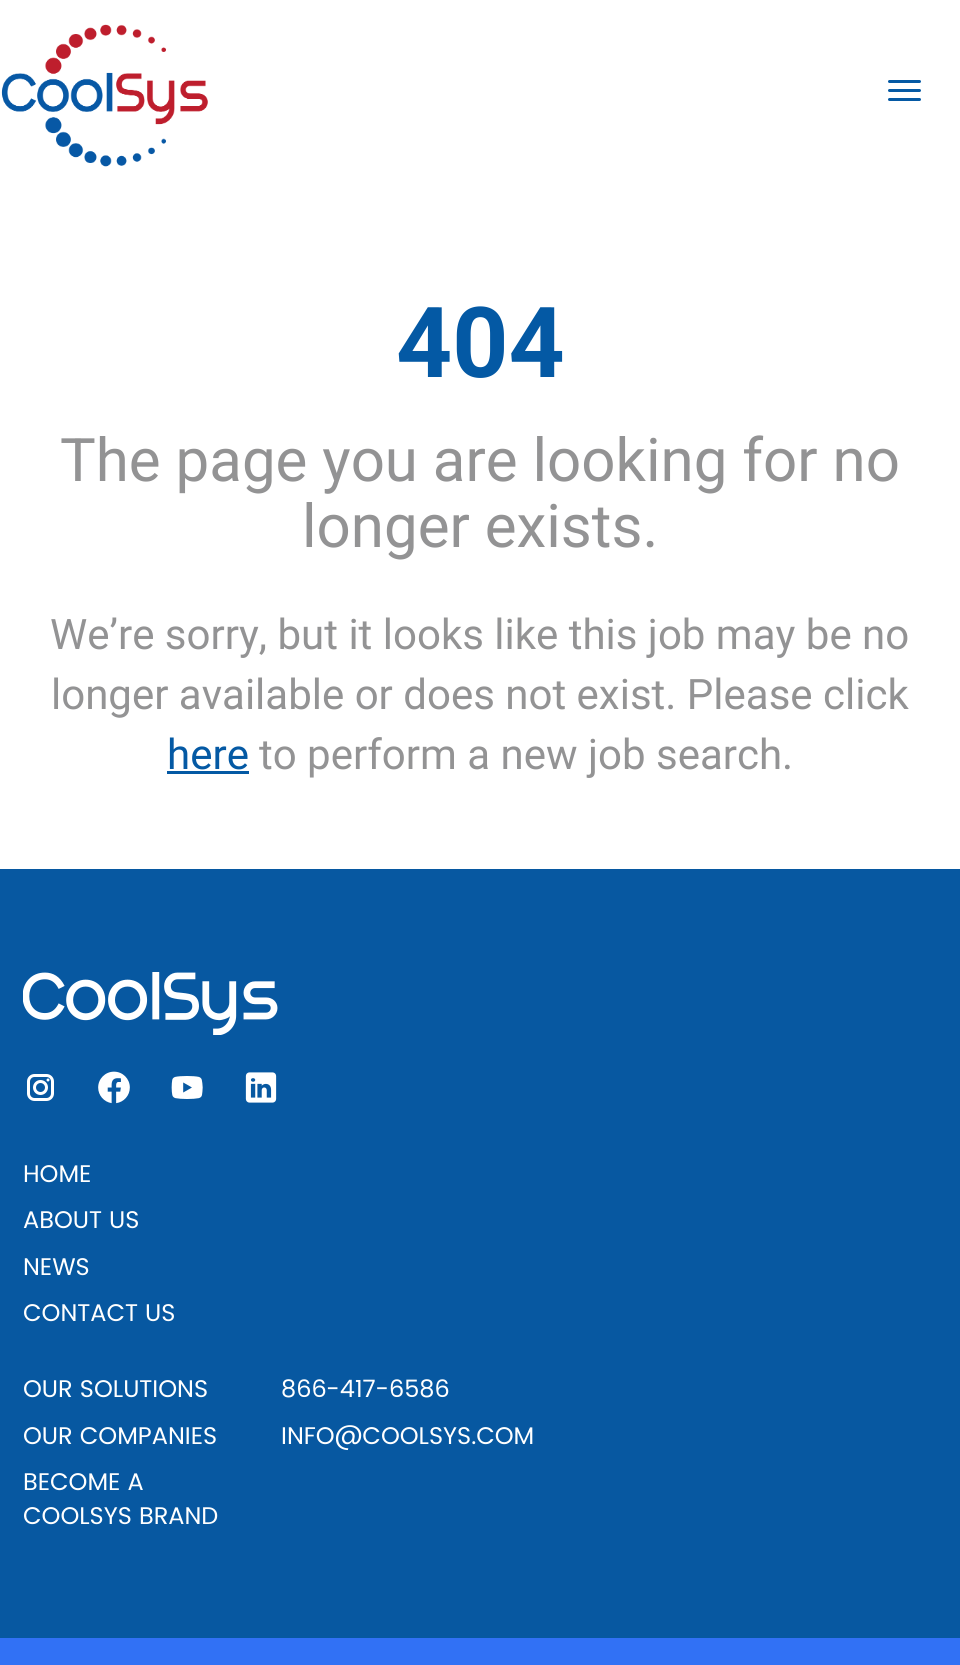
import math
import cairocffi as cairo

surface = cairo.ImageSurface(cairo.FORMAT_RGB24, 960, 1665)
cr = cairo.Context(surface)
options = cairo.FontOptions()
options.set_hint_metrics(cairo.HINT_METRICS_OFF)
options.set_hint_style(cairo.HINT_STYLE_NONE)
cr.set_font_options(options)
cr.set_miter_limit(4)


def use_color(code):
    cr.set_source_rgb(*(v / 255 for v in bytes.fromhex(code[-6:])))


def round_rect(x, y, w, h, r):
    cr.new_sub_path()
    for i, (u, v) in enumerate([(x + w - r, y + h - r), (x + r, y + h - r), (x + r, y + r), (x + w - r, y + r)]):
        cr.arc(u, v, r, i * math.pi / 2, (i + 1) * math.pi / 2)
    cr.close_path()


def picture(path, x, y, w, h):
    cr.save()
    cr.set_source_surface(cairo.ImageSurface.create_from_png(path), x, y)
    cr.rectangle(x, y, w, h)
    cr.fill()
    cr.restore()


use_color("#ffffff")
cr.paint()
picture("img1.png", 1, 24, 207, 143)
use_color("#0459a4")
round_rect(888, 80, 33, 3, 1.5)
cr.fill()
round_rect(888, 89, 33, 3, 1.5)
cr.fill()
round_rect(888, 98, 33, 3, 1.5)
cr.fill()
cr.select_font_face("Roboto", cairo.FONT_SLANT_NORMAL, cairo.FONT_WEIGHT_BOLD)
cr.set_font_size(98)
cr.move_to(396, 377)
cr.show_text("404")
cr.select_font_face("Roboto")
cr.set_font_size(60)
use_color("#939394")
cr.move_to(60, 481)
cr.show_text("The page you are looking for no")
cr.move_to(302, 547)
cr.show_text("longer exists.")
cr.set_font_size(42)
cr.move_to(50, 649)
cr.show_text("We’re sorry, but it looks like this job may be no")
cr.move_to(51, 709)
cr.show_text("longer available or does not exist. Please click")
use_color("#0459a4")
cr.move_to(167, 769)
cr.show_text("here")
cr.rectangle(167, 771, 82, 3)
cr.fill()
use_color("#939394")
cr.move_to(259, 769)
cr.show_text("to perform a new job search.")
use_color("#0758a1")
cr.rectangle(0, 869, 960, 769)
cr.fill()
picture("img2.png", 23, 972, 255, 63)
picture("img3.png", 27, 1074, 27, 27)
picture("img4.png", 98, 1071, 32, 33)
picture("img5.png", 171, 1076, 32, 23)
picture("img6.png", 245, 1072, 32, 31)
cr.select_font_face("Poppins")
cr.set_font_size(24)
use_color("#ffffff")
cr.move_to(23, 1182)
cr.show_text("HOME")
cr.move_to(23, 1228)
cr.show_text("ABOUT US")
cr.move_to(23, 1275)
cr.show_text("NEWS")
cr.move_to(23, 1321)
cr.show_text("CONTACT US")
cr.move_to(23, 1397)
cr.show_text("OUR SOLUTIONS")
cr.move_to(23, 1444)
cr.show_text("OUR COMPANIES")
cr.move_to(23, 1490)
cr.show_text("BECOME A")
cr.move_to(23, 1524)
cr.show_text("COOLSYS BRAND")
cr.move_to(281, 1397)
cr.show_text("866-417-6586")
cr.move_to(281, 1444)
cr.show_text("INFO@COOLSYS.COM")
use_color("#3171f5")
cr.rectangle(0, 1638, 960, 27)
cr.fill()
surface.write_to_png("result.png")
